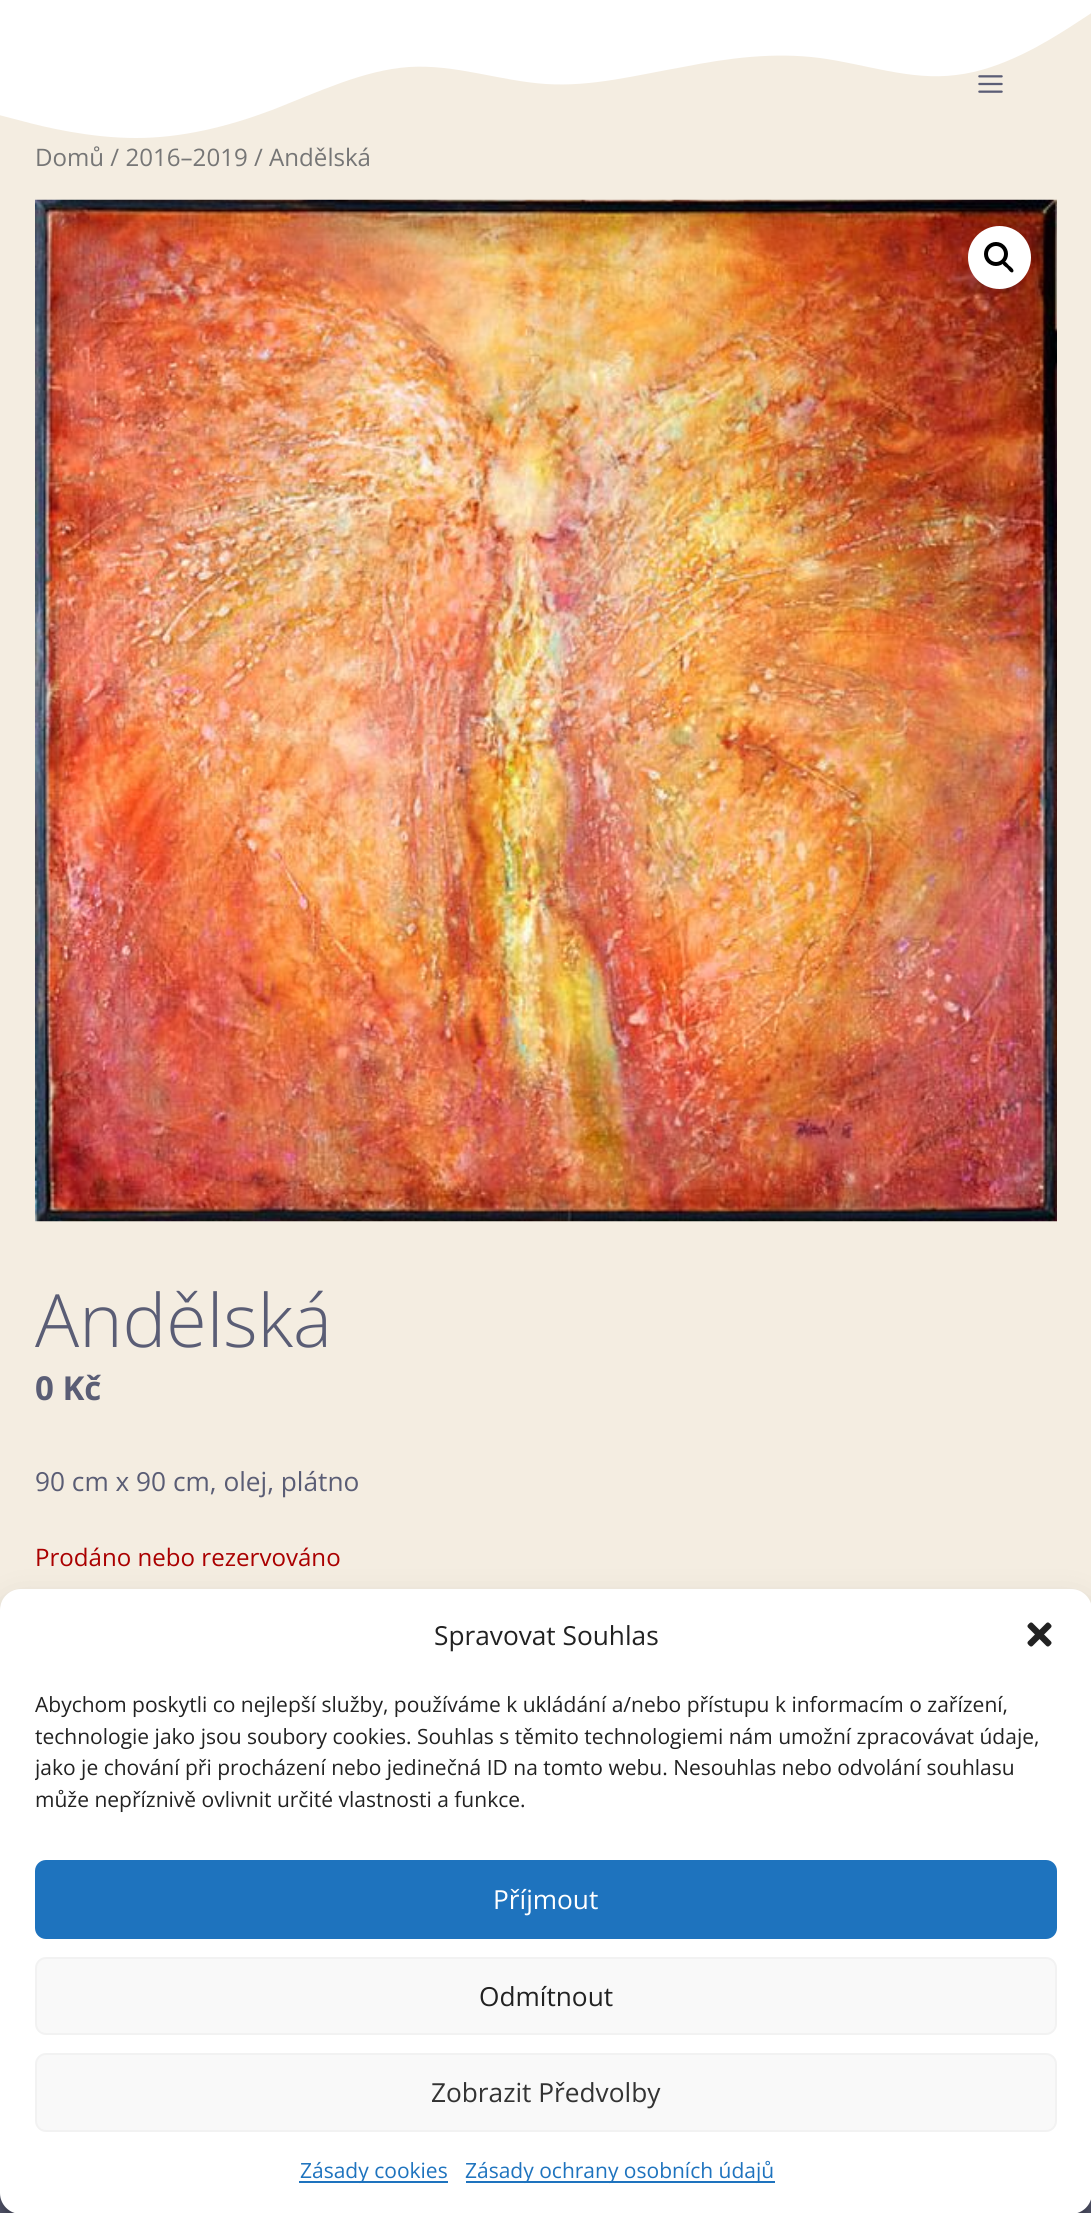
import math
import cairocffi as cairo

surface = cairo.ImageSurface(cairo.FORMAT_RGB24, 1091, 2213)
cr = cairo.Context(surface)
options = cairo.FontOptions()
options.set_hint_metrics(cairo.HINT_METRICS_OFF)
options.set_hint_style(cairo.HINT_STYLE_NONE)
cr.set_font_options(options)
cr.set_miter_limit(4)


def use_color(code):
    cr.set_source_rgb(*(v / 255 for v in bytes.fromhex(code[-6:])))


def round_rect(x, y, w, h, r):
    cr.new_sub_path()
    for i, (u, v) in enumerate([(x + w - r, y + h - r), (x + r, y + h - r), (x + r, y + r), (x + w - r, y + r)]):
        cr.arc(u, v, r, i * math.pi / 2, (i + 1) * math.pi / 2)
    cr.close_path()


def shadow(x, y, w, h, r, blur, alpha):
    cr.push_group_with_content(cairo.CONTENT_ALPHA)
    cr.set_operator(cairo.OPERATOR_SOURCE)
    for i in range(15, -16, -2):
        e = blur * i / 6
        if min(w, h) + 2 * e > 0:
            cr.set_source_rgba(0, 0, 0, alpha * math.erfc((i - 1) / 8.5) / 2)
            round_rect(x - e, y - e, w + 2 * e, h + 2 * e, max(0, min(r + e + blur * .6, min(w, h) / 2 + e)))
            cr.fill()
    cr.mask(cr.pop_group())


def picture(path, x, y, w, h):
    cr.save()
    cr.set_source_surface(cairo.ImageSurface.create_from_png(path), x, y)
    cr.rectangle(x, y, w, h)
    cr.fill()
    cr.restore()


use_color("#f4ede1")
cr.paint()
use_color("#ffffff")
cr.new_path()
cr.move_to(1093, 12)
cr.line_to(1070, 27)
cr.curve_to(1048, 41, 1002, 70, 956, 75)
cr.curve_to(911, 81, 865, 64, 820, 58)
cr.curve_to(774, 52, 728, 58, 683, 67)
cr.curve_to(637, 75, 592, 87, 546, 84)
cr.curve_to(500, 81, 455, 64, 409, 67)
cr.curve_to(364, 70, 318, 92, 272, 110)
cr.curve_to(227, 127, 181, 138, 136, 138)
cr.curve_to(90, 138, 44, 127, 22, 121)
cr.line_to(-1, 115)
cr.line_to(-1, -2)
cr.line_to(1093, -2)
cr.close_path()
cr.fill()
picture("img1.png", 978, 75, 25, 18)
cr.select_font_face("Open Sans")
cr.set_font_size(24.1)
use_color("#767676")
cr.move_to(35, 166)
cr.show_text("Domů / 2016–2019 / Andělská")
picture("img2.png", 35, 199, 1022, 1023)
use_color("#ffffff")
cr.arc(999.5, 257.5, 31.5, 0, 2 * math.pi)
cr.fill()
cr.arc(996, 254, 10, 0, 2 * math.pi)
use_color("#000000")
cr.set_line_width(4)
cr.stroke()
cr.new_path()
cr.move_to(1003, 262)
cr.curve_to(1005, 260, 1008, 264.5, 1009, 265.5)
cr.curve_to(1010.5, 266.5, 1015, 270, 1013, 272)
cr.curve_to(1011, 274, 1008, 269, 1007, 268)
cr.curve_to(1005.5, 267, 1001, 264, 1003, 262)
cr.close_path()
cr.fill()
cr.select_font_face("Open Sans Light")
cr.set_font_size(73.5)
use_color("#5a5d75")
cr.move_to(35, 1347)
cr.show_text("Andělská")
cr.select_font_face("Open Sans", cairo.FONT_SLANT_NORMAL, cairo.FONT_WEIGHT_BOLD)
cr.set_font_size(33)
cr.move_to(35, 1400)
cr.show_text("0 Kč")
cr.select_font_face("Open Sans")
cr.set_font_size(26.25)
cr.move_to(35, 1491)
cr.show_text("90 cm x 90 cm, olej, plátno")
cr.set_font_size(24.1)
use_color("#aa0000")
cr.move_to(35, 1566)
cr.show_text("Prodáno nebo rezervováno")
use_color("#5a5d75")
cr.rectangle(0, 2193, 1091, 20)
cr.fill()
use_color("#000000")
shadow(0, 1600, 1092, 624, 21, 5, 0.23)
shadow(0, 1607, 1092, 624, 21, 17.5, 0.19)
use_color("#ffffff")
round_rect(0, 1589, 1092, 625, 21)
cr.fill()
cr.set_font_size(26.25)
use_color("#222222")
cr.move_to(434, 1645)
cr.show_text("Spravovat Souhlas")
picture("img3.png", 1027, 1622, 25, 25)
cr.set_font_size(21)
cr.move_to(35, 1712)
cr.show_text("Abychom poskytli co nejlepší služby, používáme k ukládání a/nebo přístupu k informacím o zařízení,")
cr.move_to(35, 1744)
cr.show_text("technologie jako jsou soubory cookies. Souhlas s těmito technologiemi nám umožní zpracovávat údaje,")
cr.save()
cr.rectangle(35, 1691, 1022, 134)
cr.clip()
cr.move_to(35, 1775)
cr.show_text("jako je chování při procházení nebo jedinečná ID na tomto webu. Nesouhlas nebo odvolání souhlasu")
cr.restore()
cr.move_to(35, 1807)
cr.show_text("může nepříznivě ovlivnit určité vlastnosti a funkce.")
use_color("#1e73be")
round_rect(36, 1861, 1020, 77, 10)
cr.fill_preserve()
cr.set_line_width(2)
cr.stroke()
cr.set_font_size(26.25)
use_color("#ffffff")
cr.move_to(493, 1909)
cr.show_text("Příjmout")
use_color("#f9f9f9")
round_rect(36, 1958, 1020, 76, 10)
cr.fill_preserve()
use_color("#f2f2f2")
cr.stroke()
use_color("#222222")
cr.move_to(479, 2006)
cr.show_text("Odmítnout")
use_color("#f9f9f9")
round_rect(36, 2054, 1020, 77, 10)
cr.fill_preserve()
use_color("#f2f2f2")
cr.stroke()
use_color("#333333")
cr.move_to(431, 2102)
cr.show_text("Zobrazit Předvolby")
use_color("#1e73be")
cr.rectangle(299, 2181, 149, 2)
cr.fill()
cr.set_font_size(21)
cr.move_to(300, 2178)
cr.show_text("Zásady cookies")
cr.rectangle(466, 2181, 309, 2)
cr.fill()
cr.move_to(465, 2178)
cr.show_text("Zásady ochrany osobních údajů")
surface.write_to_png("result.png")
